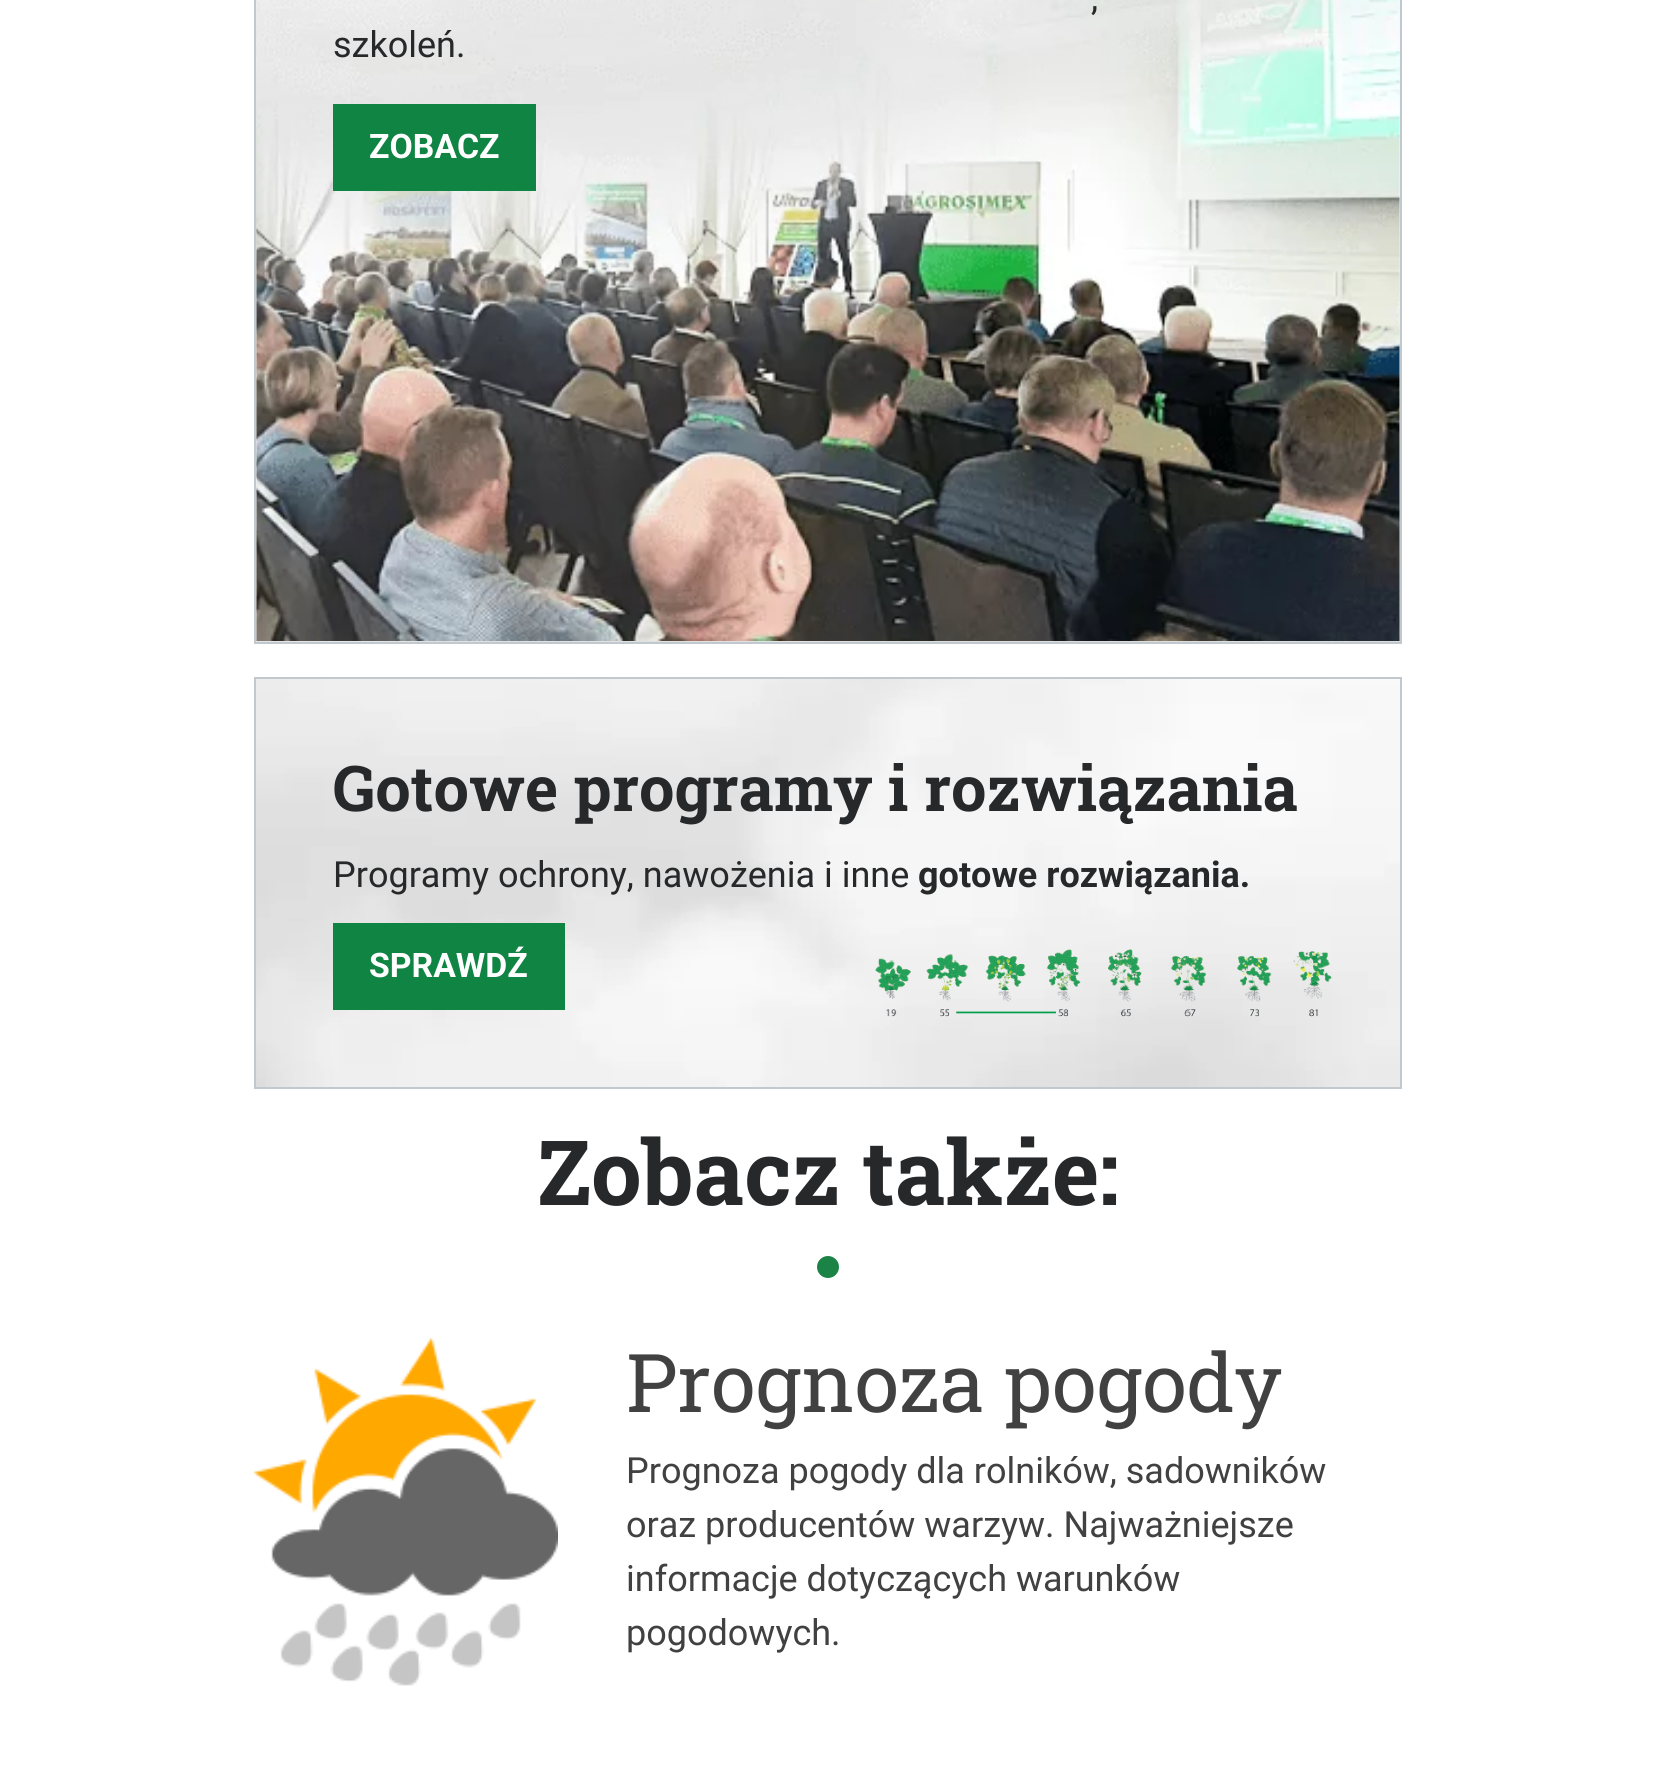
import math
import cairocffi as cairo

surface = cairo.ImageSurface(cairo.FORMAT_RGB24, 1656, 1783)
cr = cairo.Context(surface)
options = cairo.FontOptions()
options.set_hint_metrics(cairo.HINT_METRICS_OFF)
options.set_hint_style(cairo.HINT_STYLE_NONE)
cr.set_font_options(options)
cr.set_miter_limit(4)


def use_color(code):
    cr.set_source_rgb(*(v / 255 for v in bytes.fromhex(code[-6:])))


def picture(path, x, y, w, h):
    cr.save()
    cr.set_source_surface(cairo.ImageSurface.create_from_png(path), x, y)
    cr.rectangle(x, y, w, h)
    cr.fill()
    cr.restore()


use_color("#ffffff")
cr.paint()
picture("img1.png", 256, 0, 1144, 642)
cr.rectangle(255, -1, 1146, 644)
use_color("#c1c9cf")
cr.stroke()
picture("img2.png", 256, 0, 1144, 641)
cr.select_font_face("Roboto")
cr.set_font_size(36)
use_color("#26282a")
cr.move_to(1091, 10)
cr.show_text(",")
cr.move_to(333, 57)
cr.show_text("szkoleń.")
use_color("#108442")
cr.rectangle(333, 104, 203, 87)
cr.fill()
cr.select_font_face("Roboto", cairo.FONT_SLANT_NORMAL, cairo.FONT_WEIGHT_BOLD)
cr.set_font_size(33.75)
use_color("#ffffff")
cr.move_to(369, 158)
cr.show_text("ZOBACZ")
picture("img3.png", 256, 679, 1144, 408)
cr.rectangle(255, 678, 1146, 410)
use_color("#c1c9cf")
cr.stroke()
picture("img4.png", 875, 949, 457, 68)
cr.select_font_face("Roboto Slab", cairo.FONT_SLANT_NORMAL, cairo.FONT_WEIGHT_BOLD)
cr.set_font_size(63)
use_color("#26282a")
cr.move_to(333, 811)
cr.show_text("Gotowe programy i rozwiązania")
cr.select_font_face("Roboto")
cr.set_font_size(36)
cr.move_to(333, 887)
cr.show_text("Programy ochrony, nawożenia i inne")
cr.select_font_face("Roboto", cairo.FONT_SLANT_NORMAL, cairo.FONT_WEIGHT_BOLD)
cr.move_to(918, 887)
cr.show_text("gotowe rozwiązania.")
use_color("#108442")
cr.rectangle(333, 923, 232, 87)
cr.fill()
cr.set_font_size(33.75)
use_color("#ffffff")
cr.move_to(369, 977)
cr.show_text("SPRAWDŹ")
cr.select_font_face("Roboto Slab", cairo.FONT_SLANT_NORMAL, cairo.FONT_WEIGHT_BOLD)
cr.set_font_size(90)
use_color("#26282a")
cr.move_to(537, 1205)
cr.show_text("Zobacz także:")
use_color("#1a8345")
cr.new_path()
cr.arc(828, 1267, 11, 0, 2 * math.pi)
cr.fill()
picture("img5.png", 254, 1338, 304, 348)
cr.select_font_face("Roboto Slab")
cr.set_font_size(81)
use_color("#424141")
cr.move_to(626, 1412)
cr.show_text("Prognoza pogody")
cr.select_font_face("Roboto")
cr.set_font_size(36)
cr.move_to(626, 1483)
cr.show_text("Prognoza pogody dla rolników, sadowników")
cr.move_to(626, 1537)
cr.show_text("oraz producentów warzyw. Najważniejsze")
cr.move_to(626, 1591)
cr.show_text("informacje dotyczących warunków")
cr.move_to(626, 1645)
cr.show_text("pogodowych.")
surface.write_to_png("result.png")
